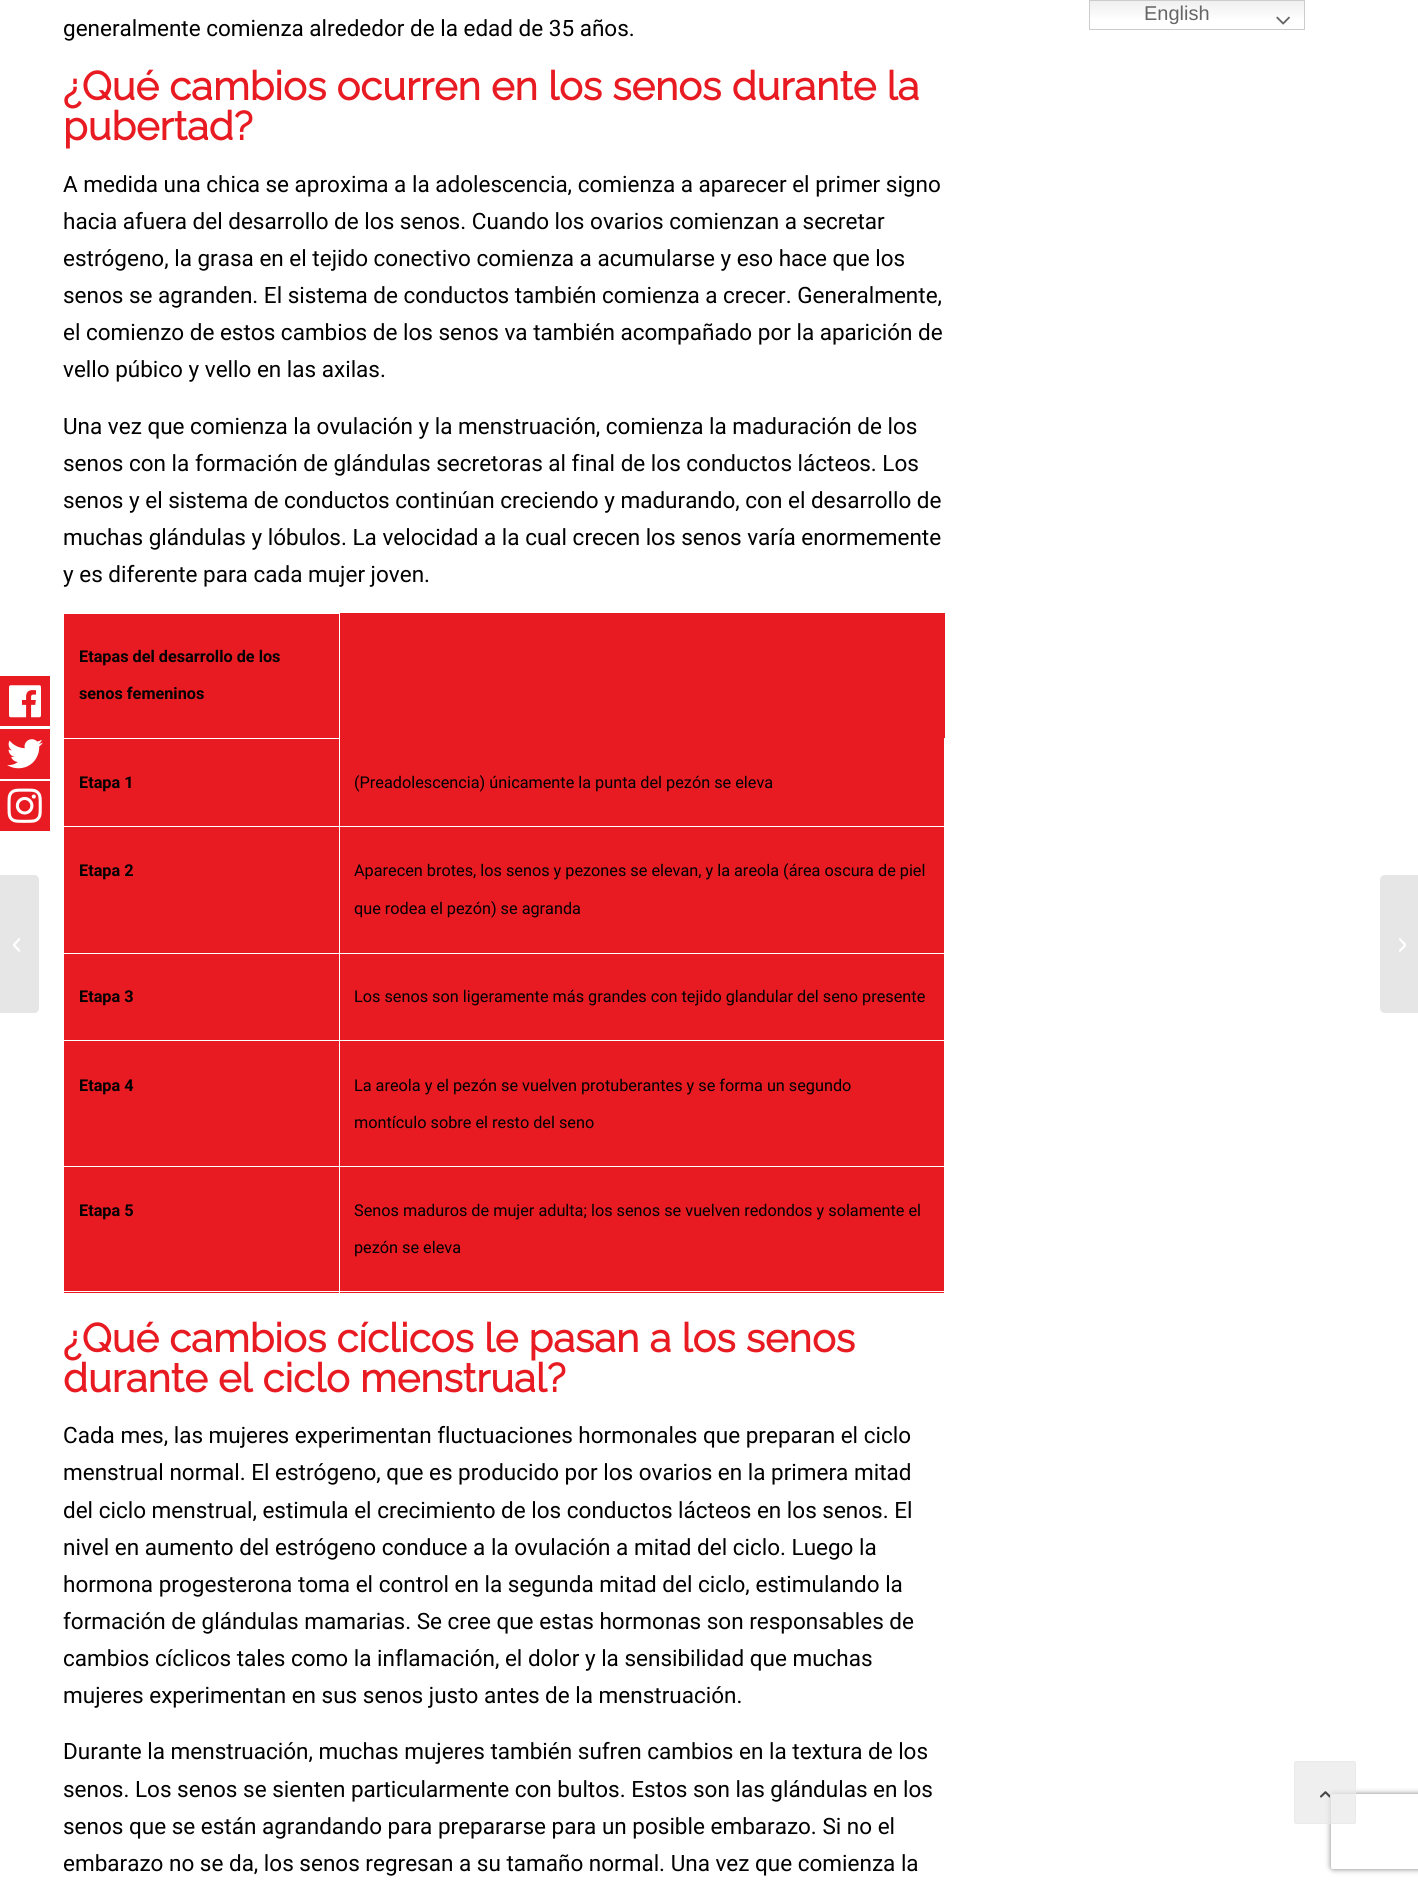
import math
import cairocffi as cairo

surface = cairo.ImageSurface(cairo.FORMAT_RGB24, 1418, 1886)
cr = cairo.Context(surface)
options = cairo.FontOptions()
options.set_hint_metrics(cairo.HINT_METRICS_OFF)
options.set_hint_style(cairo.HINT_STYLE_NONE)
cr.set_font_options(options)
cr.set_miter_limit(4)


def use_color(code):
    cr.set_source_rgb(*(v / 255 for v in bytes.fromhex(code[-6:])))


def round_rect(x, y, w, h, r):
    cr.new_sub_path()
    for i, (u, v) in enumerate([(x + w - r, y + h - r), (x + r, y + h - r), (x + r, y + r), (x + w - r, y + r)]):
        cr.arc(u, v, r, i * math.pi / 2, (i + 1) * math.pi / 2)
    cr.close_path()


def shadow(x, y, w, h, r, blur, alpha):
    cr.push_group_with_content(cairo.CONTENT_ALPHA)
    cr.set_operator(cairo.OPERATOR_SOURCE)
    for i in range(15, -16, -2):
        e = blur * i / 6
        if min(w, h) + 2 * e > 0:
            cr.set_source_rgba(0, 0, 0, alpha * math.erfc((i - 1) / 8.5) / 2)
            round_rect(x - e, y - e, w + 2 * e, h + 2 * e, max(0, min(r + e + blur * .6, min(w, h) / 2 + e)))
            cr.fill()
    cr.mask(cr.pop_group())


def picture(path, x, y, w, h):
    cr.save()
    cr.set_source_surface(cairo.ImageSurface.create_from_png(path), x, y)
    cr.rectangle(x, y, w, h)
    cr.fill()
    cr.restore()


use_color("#ffffff")
cr.paint()
gradient = cairo.LinearGradient(1197, 0, 1197, 30)
gradient.add_color_stop_rgba(0, 0.937, 0.937, 0.937, 1)
gradient.add_color_stop_rgba(0.7, 1, 1, 1, 1)
cr.set_source(gradient)
cr.rectangle(1090, 1, 214, 17)
cr.fill()
cr.rectangle(1089.5, 0.5, 215, 29)
use_color("#cccccc")
cr.set_line_width(1)
cr.stroke()
cr.select_font_face("Liberation Sans")
cr.set_font_size(20)
use_color("#666666")
cr.move_to(1144, 20)
cr.show_text("English")
picture("img1.png", 1276, 16, 14, 9)
use_color("#e81b22")
cr.rectangle(0, 676, 50, 50)
cr.fill()
picture("img2.png", 9, 685, 32, 33)
cr.rectangle(0, 729, 50, 50)
cr.fill()
picture("img3.png", 7, 739, 36, 30)
cr.rectangle(0, 781, 50, 50)
cr.fill()
picture("img4.png", 7, 788, 35, 35)
use_color("#e6e6e6")
cr.new_path()
cr.move_to(0, 875)
cr.line_to(34, 875)
cr.curve_to(37, 875, 39, 877, 39, 880)
cr.line_to(39, 1008)
cr.curve_to(39, 1011, 37, 1013, 34, 1013)
cr.line_to(0, 1013)
cr.close_path()
cr.fill()
picture("img5.png", 13, 938, 7, 14)
cr.select_font_face("Roboto")
cr.set_font_size(22.5)
use_color("#000000")
cr.move_to(63, 36)
cr.show_text("generalmente comienza alrededor de la edad de 35 años.")
cr.select_font_face("Raleway", cairo.FONT_SLANT_NORMAL, cairo.FONT_WEIGHT_BOLD)
cr.set_font_size(40)
use_color("#e81b22")
cr.move_to(63, 100)
cr.show_text("¿Qué cambios ocurren en los senos durante la")
cr.move_to(63, 140)
cr.show_text("pubertad?")
cr.select_font_face("Roboto")
cr.set_font_size(22.5)
use_color("#000000")
cr.move_to(63, 192)
cr.show_text("A medida una chica se aproxima a la adolescencia, comienza a aparecer el primer signo")
cr.move_to(63, 229)
cr.show_text("hacia afuera del desarrollo de los senos. Cuando los ovarios comienzan a secretar")
cr.move_to(63, 266)
cr.show_text("estrógeno, la grasa en el tejido conectivo comienza a acumularse y eso hace que los")
cr.move_to(63, 303)
cr.show_text("senos se agranden. El sistema de conductos también comienza a crecer. Generalmente,")
cr.move_to(63, 340)
cr.show_text("el comienzo de estos cambios de los senos va también acompañado por la aparición de")
cr.move_to(63, 377)
cr.show_text("vello púbico y vello en las axilas.")
cr.move_to(63, 434)
cr.show_text("Una vez que comienza la ovulación y la menstruación, comienza la maduración de los")
cr.move_to(63, 471)
cr.show_text("senos con la formación de glándulas secretoras al final de los conductos lácteos. Los")
cr.move_to(63, 508)
cr.show_text("senos y el sistema de conductos continúan creciendo y madurando, con el desarrollo de")
cr.move_to(63, 545)
cr.show_text("muchas glándulas y lóbulos. La velocidad a la cual crecen los senos varía enormemente")
cr.move_to(63, 582)
cr.show_text("y es diferente para cada mujer joven.")
use_color("#e81b22")
cr.rectangle(64, 613, 881, 680)
cr.fill()
use_color("#ffffff")
cr.rectangle(63, 613, 277, 1)
cr.fill()
cr.rectangle(944, 738, 1, 555)
cr.fill()
cr.rectangle(339, 1291, 606, 1)
cr.fill()
cr.rectangle(339, 1166, 1, 127)
cr.fill()
cr.rectangle(339, 1166, 606, 1)
cr.fill()
cr.rectangle(339, 1040, 1, 128)
cr.fill()
cr.rectangle(339, 1040, 606, 1)
cr.fill()
cr.rectangle(339, 953, 1, 88)
cr.fill()
cr.rectangle(339, 953, 606, 1)
cr.fill()
cr.rectangle(339, 826, 1, 128)
cr.fill()
cr.rectangle(339, 826, 606, 1)
cr.fill()
cr.rectangle(339, 738, 1, 90)
cr.fill()
cr.rectangle(339, 613, 1, 126)
cr.fill()
cr.rectangle(63, 738, 277, 1)
cr.fill()
cr.select_font_face("Roboto", cairo.FONT_SLANT_NORMAL, cairo.FONT_WEIGHT_BOLD)
cr.set_font_size(16.25)
use_color("#000000")
cr.move_to(79, 662)
cr.show_text("Etapas del desarrollo de los")
cr.move_to(79, 699)
cr.show_text("senos femeninos")
use_color("#ffffff")
cr.rectangle(63, 826, 277, 1)
cr.fill()
use_color("#000000")
cr.move_to(79, 788)
cr.show_text("Etapa 1")
cr.select_font_face("Roboto")
cr.move_to(354, 788)
cr.show_text("(Preadolescencia) únicamente la punta del pezón se eleva")
use_color("#ffffff")
cr.rectangle(63, 953, 277, 1)
cr.fill()
cr.select_font_face("Roboto", cairo.FONT_SLANT_NORMAL, cairo.FONT_WEIGHT_BOLD)
use_color("#000000")
cr.move_to(79, 876)
cr.show_text("Etapa 2")
cr.select_font_face("Roboto")
cr.move_to(354, 876)
cr.show_text("Aparecen brotes, los senos y pezones se elevan, y la areola (área oscura de piel")
cr.move_to(354, 914)
cr.show_text("que rodea el pezón) se agranda")
use_color("#ffffff")
cr.rectangle(63, 1040, 277, 1)
cr.fill()
cr.select_font_face("Roboto", cairo.FONT_SLANT_NORMAL, cairo.FONT_WEIGHT_BOLD)
use_color("#000000")
cr.move_to(79, 1002)
cr.show_text("Etapa 3")
cr.select_font_face("Roboto")
cr.move_to(354, 1002)
cr.show_text("Los senos son ligeramente más grandes con tejido glandular del seno presente")
use_color("#ffffff")
cr.rectangle(63, 1166, 277, 1)
cr.fill()
cr.select_font_face("Roboto", cairo.FONT_SLANT_NORMAL, cairo.FONT_WEIGHT_BOLD)
use_color("#000000")
cr.move_to(79, 1091)
cr.show_text("Etapa 4")
cr.select_font_face("Roboto")
cr.move_to(354, 1091)
cr.show_text("La areola y el pezón se vuelven protuberantes y se forma un segundo")
cr.move_to(354, 1128)
cr.show_text("montículo sobre el resto del seno")
use_color("#ffffff")
cr.rectangle(63, 1291, 277, 1)
cr.fill()
cr.select_font_face("Roboto", cairo.FONT_SLANT_NORMAL, cairo.FONT_WEIGHT_BOLD)
use_color("#000000")
cr.move_to(79, 1216)
cr.show_text("Etapa 5")
cr.select_font_face("Roboto")
cr.move_to(354, 1216)
cr.show_text("Senos maduros de mujer adulta; los senos se vuelven redondos y solamente el")
cr.move_to(354, 1253)
cr.show_text("pezón se eleva")
cr.select_font_face("Raleway", cairo.FONT_SLANT_NORMAL, cairo.FONT_WEIGHT_BOLD)
cr.set_font_size(40)
use_color("#e81b22")
cr.move_to(63, 1352)
cr.show_text("¿Qué cambios cíclicos le pasan a los senos")
cr.move_to(63, 1392)
cr.show_text("durante el ciclo menstrual?")
cr.select_font_face("Roboto")
cr.set_font_size(22.5)
use_color("#000000")
cr.move_to(63, 1443)
cr.show_text("Cada mes, las mujeres experimentan fluctuaciones hormonales que preparan el ciclo")
cr.move_to(63, 1480)
cr.show_text("menstrual normal. El estrógeno, que es producido por los ovarios en la primera mitad")
cr.move_to(63, 1518)
cr.show_text("del ciclo menstrual, estimula el crecimiento de los conductos lácteos en los senos. El")
cr.move_to(63, 1555)
cr.show_text("nivel en aumento del estrógeno conduce a la ovulación a mitad del ciclo. Luego la")
cr.move_to(63, 1592)
cr.show_text("hormona progesterona toma el control en la segunda mitad del ciclo, estimulando la")
cr.move_to(63, 1629)
cr.show_text("formación de glándulas mamarias. Se cree que estas hormonas son responsables de")
cr.move_to(63, 1666)
cr.show_text("cambios cíclicos tales como la inflamación, el dolor y la sensibilidad que muchas")
cr.move_to(63, 1703)
cr.show_text("mujeres experimentan en sus senos justo antes de la menstruación.")
cr.move_to(63, 1759)
cr.show_text("Durante la menstruación, muchas mujeres también sufren cambios en la textura de los")
cr.move_to(63, 1797)
cr.show_text("senos. Los senos se sienten particularmente con bultos. Estos son las glándulas en los")
cr.move_to(63, 1834)
cr.show_text("senos que se están agrandando para prepararse para un posible embarazo. Si no el")
cr.move_to(63, 1871)
cr.show_text("embarazo no se da, los senos regresan a su tamaño normal. Una vez que comienza la")
use_color("#e6e6e6")
cr.new_path()
cr.move_to(1385, 875)
cr.line_to(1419, 875)
cr.line_to(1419, 1013)
cr.line_to(1385, 1013)
cr.curve_to(1382, 1013, 1380, 1011, 1380, 1008)
cr.line_to(1380, 880)
cr.curve_to(1380, 877, 1382, 875, 1385, 875)
cr.close_path()
cr.fill()
picture("img6.png", 1399, 938, 7, 14)
cr.save()
cr.set_fill_rule(cairo.FILL_RULE_EVEN_ODD)
cr.new_path()
cr.move_to(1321, 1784)
cr.line_to(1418, 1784)
cr.line_to(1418, 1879)
cr.line_to(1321, 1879)
cr.close_path()
cr.move_to(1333.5, 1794)
cr.line_to(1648.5, 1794)
cr.curve_to(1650, 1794, 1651, 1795, 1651, 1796.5)
cr.line_to(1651, 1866.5)
cr.curve_to(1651, 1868, 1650, 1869, 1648.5, 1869)
cr.line_to(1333.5, 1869)
cr.curve_to(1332, 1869, 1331, 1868, 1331, 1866.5)
cr.line_to(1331, 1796.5)
cr.curve_to(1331, 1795, 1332, 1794, 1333.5, 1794)
cr.close_path()
cr.clip()
use_color("#808080")
shadow(1331, 1794, 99, 75, 2.5, 3, 1)
cr.restore()
cr.set_source_rgba(0.91, 0.91, 0.91, 0.7)
round_rect(1294, 1761, 62, 63, 2.5)
cr.fill()
round_rect(1294.5, 1761.5, 61, 62, 2)
cr.stroke()
picture("img7.png", 1320, 1791, 10, 7)
surface.write_to_png("result.png")
